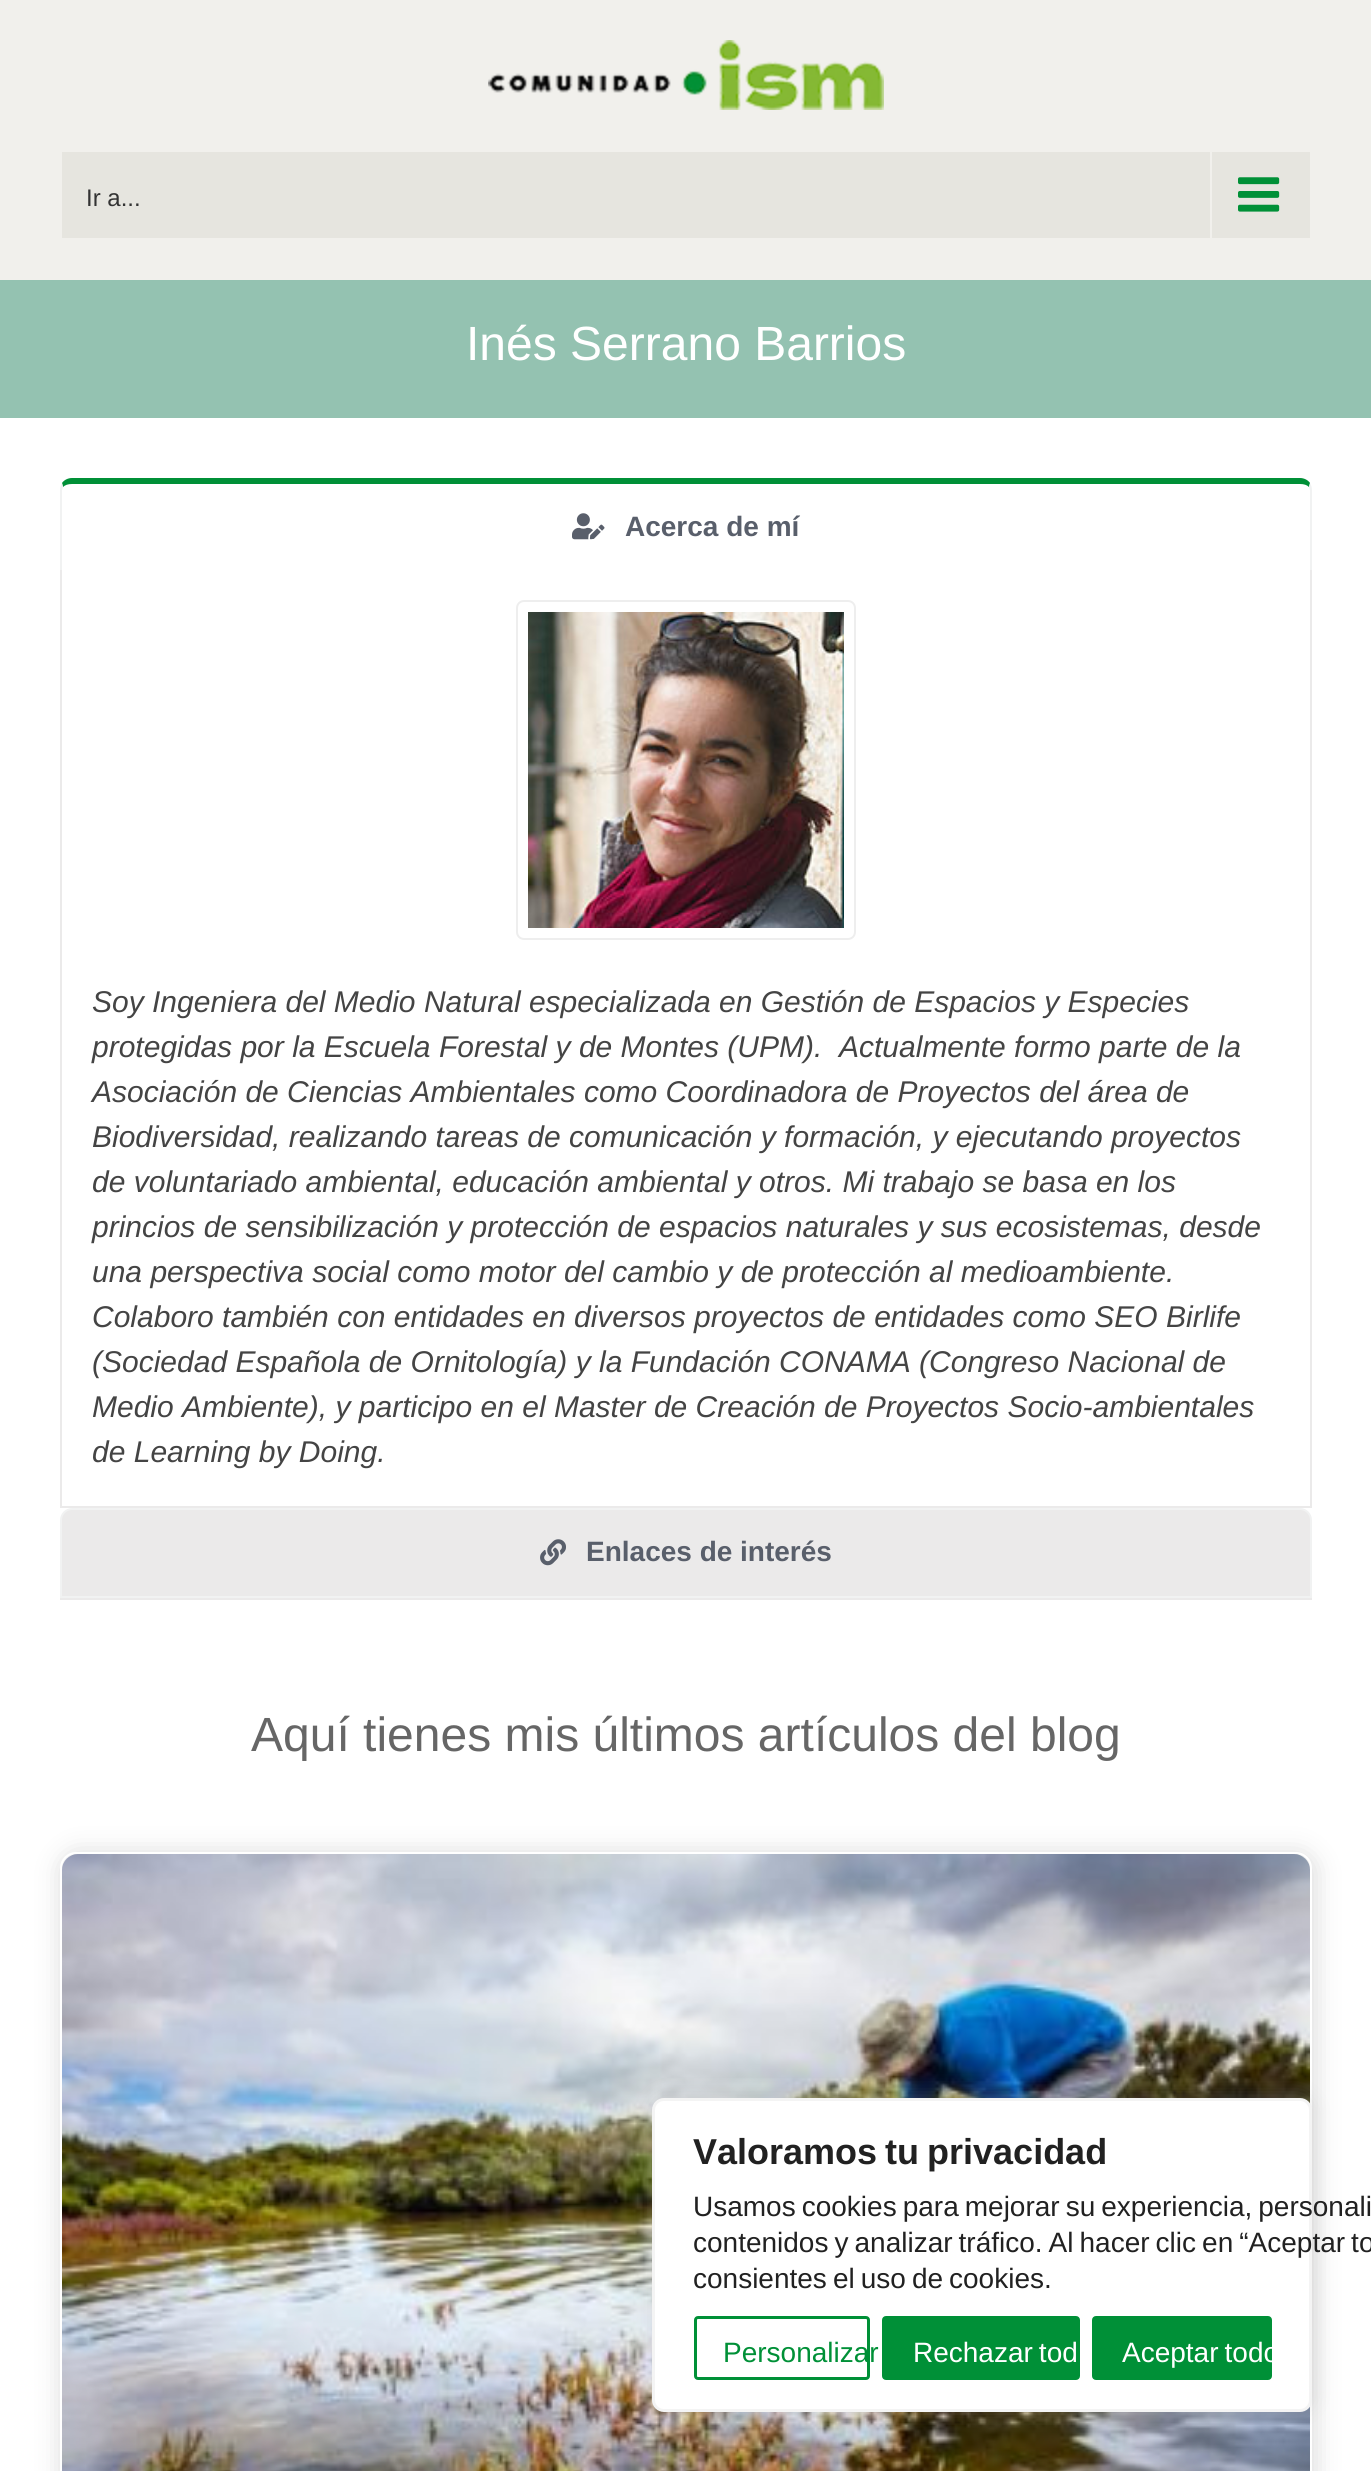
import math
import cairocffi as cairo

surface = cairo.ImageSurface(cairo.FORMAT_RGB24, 1371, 2471)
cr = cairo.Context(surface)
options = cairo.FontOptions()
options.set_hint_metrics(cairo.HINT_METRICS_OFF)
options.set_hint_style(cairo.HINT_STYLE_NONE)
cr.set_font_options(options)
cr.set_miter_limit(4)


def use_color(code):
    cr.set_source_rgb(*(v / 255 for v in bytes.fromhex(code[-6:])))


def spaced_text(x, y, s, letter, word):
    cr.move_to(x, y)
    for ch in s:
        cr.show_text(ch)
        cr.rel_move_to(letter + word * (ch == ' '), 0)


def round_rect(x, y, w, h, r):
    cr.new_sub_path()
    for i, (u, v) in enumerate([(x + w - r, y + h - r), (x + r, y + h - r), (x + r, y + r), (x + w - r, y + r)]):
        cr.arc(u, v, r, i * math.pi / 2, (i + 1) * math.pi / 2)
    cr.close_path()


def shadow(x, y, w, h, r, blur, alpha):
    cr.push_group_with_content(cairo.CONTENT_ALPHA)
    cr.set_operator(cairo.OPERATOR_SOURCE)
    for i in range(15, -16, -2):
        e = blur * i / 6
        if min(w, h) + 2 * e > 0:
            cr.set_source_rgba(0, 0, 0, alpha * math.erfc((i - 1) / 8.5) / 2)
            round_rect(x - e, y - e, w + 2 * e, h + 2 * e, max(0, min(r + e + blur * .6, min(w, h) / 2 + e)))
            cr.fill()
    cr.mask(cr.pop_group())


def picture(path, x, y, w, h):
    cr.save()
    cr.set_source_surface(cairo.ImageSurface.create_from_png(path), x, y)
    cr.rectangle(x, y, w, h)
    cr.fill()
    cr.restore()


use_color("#ffffff")
cr.paint()
use_color("#f1f0ec")
cr.rectangle(0, 0, 1371, 280)
cr.fill()
picture("img1.png", 488, 40, 396, 70)
use_color("#e6e5df")
cr.rectangle(62, 152, 1248, 86)
cr.fill()
cr.select_font_face("Liberation Sans")
cr.set_font_size(24)
use_color("#333333")
cr.move_to(86, 206)
cr.show_text("Ir a...")
use_color("#f1f0ec")
cr.rectangle(1210, 152, 2, 86)
cr.fill()
picture("img2.png", 1238, 177, 42, 35)
use_color("#94c2b1")
cr.rectangle(0, 280, 1371, 138)
cr.fill()
cr.set_font_size(48)
use_color("#ffffff")
cr.move_to(466, 360)
cr.show_text("Inés Serrano Barrios")
use_color("#009037")
cr.new_path()
cr.move_to(72, 478)
cr.curve_to(68, 478, 64, 480, 62, 483)
cr.line_to(63, 487)
cr.curve_to(65, 485, 68, 484, 72, 484)
cr.line_to(1300, 484)
cr.curve_to(1304, 484, 1307, 485, 1309, 487)
cr.line_to(1310, 483)
cr.curve_to(1308, 480, 1304, 478, 1300, 478)
cr.close_path()
cr.fill()
use_color("#f1f2f2")
cr.new_path()
cr.move_to(1310, 570)
cr.line_to(1312, 570)
cr.line_to(1312, 490)
cr.curve_to(1312, 487, 1311, 485, 1310, 483)
cr.line_to(1309, 487)
cr.line_to(1310, 490)
cr.close_path()
cr.fill()
cr.new_path()
cr.move_to(60, 570)
cr.line_to(62, 570)
cr.line_to(62, 490)
cr.line_to(63, 487)
cr.line_to(62, 483)
cr.curve_to(61, 485, 60, 487, 60, 490)
cr.close_path()
cr.fill()
picture("img3.png", 572, 513, 33, 27)
cr.select_font_face("Liberation Sans", cairo.FONT_SLANT_NORMAL, cairo.FONT_WEIGHT_BOLD)
cr.set_font_size(28)
use_color("#595f6b")
cr.move_to(625, 536)
cr.show_text("Acerca de mí")
use_color("#ebeaea")
cr.rectangle(1310, 570, 2, 938)
cr.fill()
cr.rectangle(60, 1506, 1252, 2)
cr.fill()
cr.rectangle(60, 570, 2, 938)
cr.fill()
round_rect(517, 601, 338, 338, 7)
use_color("#eeeeee")
cr.stroke()
picture("img4.png", 528, 612, 316, 316)
cr.select_font_face("Liberation Sans", cairo.FONT_SLANT_ITALIC)
cr.set_font_size(30)
use_color("#444444")
cr.move_to(92, 1012)
cr.show_text("Soy Ingeniera del Medio Natural especializada en Gestión de Espacios y Especies")
cr.move_to(92, 1057)
cr.show_text("protegidas por la Escuela Forestal y de Montes (UPM).")
cr.move_to(839, 1057)
cr.show_text("Actualmente formo parte de la")
cr.move_to(92, 1102)
cr.show_text("Asociación de Ciencias Ambientales como Coordinadora de Proyectos del área de")
cr.move_to(92, 1147)
cr.show_text("Biodiversidad, realizando tareas de comunicación y formación, y ejecutando proyectos")
cr.move_to(92, 1192)
cr.show_text("de voluntariado ambiental, educación ambiental y otros. Mi trabajo se basa en los")
cr.move_to(92, 1237)
cr.show_text("princios de sensibilización y protección de espacios naturales y sus ecosistemas, desde")
cr.move_to(92, 1282)
cr.show_text("una perspectiva social como motor del cambio y de protección al medioambiente.")
cr.move_to(92, 1327)
cr.show_text("Colaboro también con entidades en diversos proyectos de entidades como SEO Birlife")
cr.move_to(92, 1372)
cr.show_text("(Sociedad Española de Ornitología) y la Fundación CONAMA (Congreso Nacional de")
cr.move_to(92, 1417)
cr.show_text("Medio Ambiente), y participo en el Master de Creación de Proyectos Socio-ambientales")
cr.move_to(92, 1462)
cr.show_text("de Learning by Doing.")
use_color("#ebeaea")
cr.rectangle(60, 1598, 1252, 2)
cr.fill()
cr.new_path()
cr.move_to(72, 1509)
cr.line_to(1300, 1509)
cr.curve_to(1306, 1509, 1311, 1514, 1311, 1520)
cr.line_to(1311, 1597)
cr.line_to(61, 1597)
cr.line_to(61, 1520)
cr.curve_to(61, 1514, 66, 1509, 72, 1509)
cr.close_path()
cr.fill_preserve()
use_color("#f1f2f2")
cr.stroke()
picture("img5.png", 540, 1539, 26, 27)
cr.select_font_face("Liberation Sans", cairo.FONT_SLANT_NORMAL, cairo.FONT_WEIGHT_BOLD)
cr.set_font_size(28)
use_color("#595f6b")
cr.move_to(586, 1561)
cr.show_text("Enlaces de interés")
cr.select_font_face("Liberation Sans")
cr.set_font_size(48)
use_color("#666666")
cr.move_to(251, 1751)
cr.show_text("Aquí tienes mis últimos artículos del blog")
use_color("#dddddd")
shadow(60, 1852, 1256, 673, 18, 12, 1)
round_rect(61, 1853, 1250, 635, 15)
use_color("#ffffff")
cr.stroke()
picture("img6.png", 62, 1854, 1248, 617)
use_color("#acabab")
shadow(652, 2096, 660, 314, 12, 10, 0.3)
use_color("#ffffff")
round_rect(653.5, 2099.5, 657, 311, 10.5)
cr.fill_preserve()
use_color("#f4f4f4")
cr.set_line_width(3)
cr.stroke()
cr.select_font_face("Liberation Sans", cairo.FONT_SLANT_NORMAL, cairo.FONT_WEIGHT_BOLD)
cr.set_font_size(36)
use_color("#212121")
spaced_text(693, 2164, "Valoramos tu privacidad", 0, -2)
cr.select_font_face("Liberation Sans")
cr.set_font_size(28)
spaced_text(693, 2216, "Usamos cookies para mejorar su experiencia, personali", 0, -1.75)
spaced_text(693, 2252, "contenidos y analizar tráfico. Al hacer clic en “Aceptar to", 0, -1.75)
spaced_text(693, 2288, "consientes el uso de cookies.", 0, -1.75)
round_rect(695.5, 2317.5, 173, 61, 2.5)
use_color("#009037")
cr.stroke()
cr.move_to(723, 2362)
cr.show_text("Personalizar")
round_rect(883.5, 2317.5, 195, 61, 2.5)
cr.fill_preserve()
cr.stroke()
use_color("#ffffff")
spaced_text(913, 2362, "Rechazar tod", 0, -1.75)
use_color("#009037")
round_rect(1093.5, 2317.5, 177, 61, 2.5)
cr.fill_preserve()
cr.stroke()
use_color("#ffffff")
spaced_text(1122, 2362, "Aceptar todo", 0, -1.75)
surface.write_to_png("result.png")
